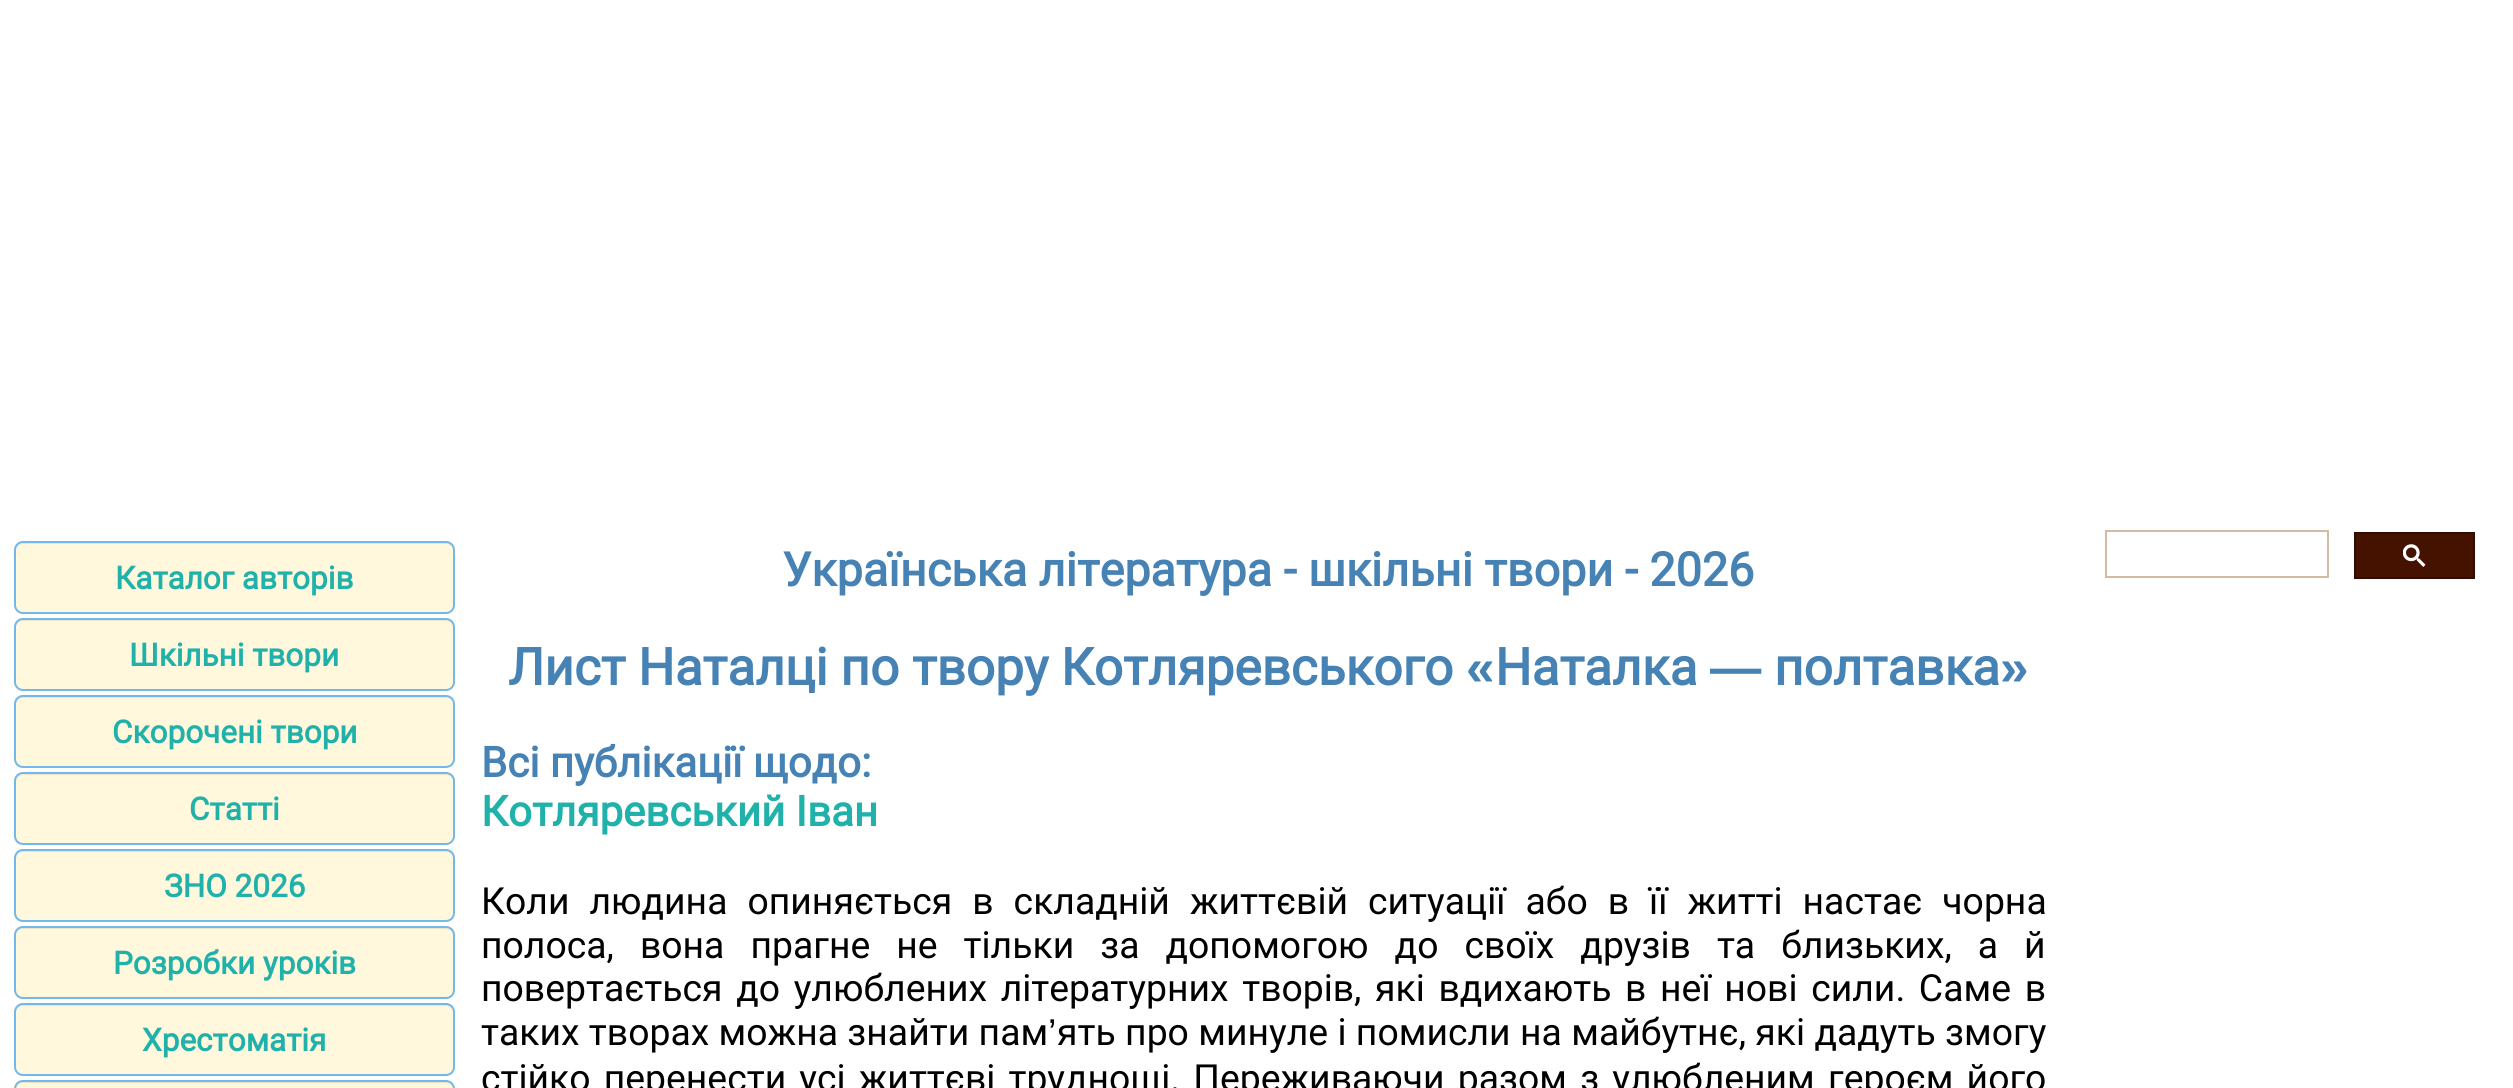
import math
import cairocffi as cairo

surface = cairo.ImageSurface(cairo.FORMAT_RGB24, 2513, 1088)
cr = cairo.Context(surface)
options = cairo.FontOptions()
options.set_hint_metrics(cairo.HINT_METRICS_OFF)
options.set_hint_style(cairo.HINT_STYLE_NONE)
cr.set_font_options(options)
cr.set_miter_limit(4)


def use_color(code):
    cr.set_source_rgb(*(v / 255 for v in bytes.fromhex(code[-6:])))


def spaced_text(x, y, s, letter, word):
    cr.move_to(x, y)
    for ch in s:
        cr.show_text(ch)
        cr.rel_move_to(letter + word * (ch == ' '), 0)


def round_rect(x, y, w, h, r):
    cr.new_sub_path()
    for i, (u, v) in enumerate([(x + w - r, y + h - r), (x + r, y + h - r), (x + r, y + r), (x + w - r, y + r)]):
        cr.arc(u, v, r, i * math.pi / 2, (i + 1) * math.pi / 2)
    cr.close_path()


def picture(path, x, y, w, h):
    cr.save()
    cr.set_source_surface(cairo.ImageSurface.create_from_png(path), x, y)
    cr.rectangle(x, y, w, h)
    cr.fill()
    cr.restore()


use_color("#ffffff")
cr.paint()
use_color("#fff8dc")
round_rect(14, 541, 441, 73, 9)
cr.fill()
use_color("#ece5cc")
cr.new_path()
cr.move_to(23, 544)
cr.line_to(446, 544)
cr.curve_to(450, 544, 453, 547, 453, 551)
cr.curve_to(453, 547, 451, 543, 446, 543)
cr.line_to(23, 543)
cr.curve_to(18, 543, 16, 547, 16, 551)
cr.curve_to(16, 547, 19, 544, 23, 544)
cr.close_path()
cr.fill()
round_rect(15, 542, 439, 71, 8)
cr.set_source_rgba(0.322, 0.659, 0.925, 0.8)
cr.stroke()
cr.select_font_face("Roboto", cairo.FONT_SLANT_NORMAL, cairo.FONT_WEIGHT_BOLD)
cr.set_font_size(31.5)
use_color("#20b2aa")
cr.move_to(115, 589)
cr.show_text("Каталог авторів")
use_color("#fff8dc")
round_rect(14, 618, 441, 73, 9)
cr.fill()
use_color("#ece5cc")
cr.new_path()
cr.move_to(23, 621)
cr.line_to(446, 621)
cr.curve_to(450, 621, 453, 624, 453, 628)
cr.curve_to(453, 624, 451, 620, 446, 620)
cr.line_to(23, 620)
cr.curve_to(18, 620, 16, 624, 16, 628)
cr.curve_to(16, 624, 19, 621, 23, 621)
cr.close_path()
cr.fill()
round_rect(15, 619, 439, 71, 8)
cr.set_source_rgba(0.322, 0.659, 0.925, 0.8)
cr.stroke()
use_color("#20b2aa")
cr.move_to(129, 666)
cr.show_text("Шкільні твори")
use_color("#fff8dc")
round_rect(14, 695, 441, 73, 9)
cr.fill()
use_color("#ece5cc")
cr.new_path()
cr.move_to(23, 698)
cr.line_to(446, 698)
cr.curve_to(450, 698, 453, 701, 453, 705)
cr.curve_to(453, 701, 451, 697, 446, 697)
cr.line_to(23, 697)
cr.curve_to(18, 697, 16, 701, 16, 705)
cr.curve_to(16, 701, 19, 698, 23, 698)
cr.close_path()
cr.fill()
round_rect(15, 696, 439, 71, 8)
cr.set_source_rgba(0.322, 0.659, 0.925, 0.8)
cr.stroke()
use_color("#20b2aa")
cr.move_to(112, 743)
cr.show_text("Скорочені твори")
use_color("#fff8dc")
round_rect(14, 772, 441, 73, 9)
cr.fill()
use_color("#ece5cc")
cr.new_path()
cr.move_to(23, 775)
cr.line_to(446, 775)
cr.curve_to(450, 775, 453, 778, 453, 782)
cr.curve_to(453, 778, 451, 774, 446, 774)
cr.line_to(23, 774)
cr.curve_to(18, 774, 16, 778, 16, 782)
cr.curve_to(16, 778, 19, 775, 23, 775)
cr.close_path()
cr.fill()
round_rect(15, 773, 439, 71, 8)
cr.set_source_rgba(0.322, 0.659, 0.925, 0.8)
cr.stroke()
use_color("#20b2aa")
cr.move_to(189, 820)
cr.show_text("Статті")
use_color("#fff8dc")
round_rect(14, 849, 441, 73, 9)
cr.fill()
use_color("#ece5cc")
cr.new_path()
cr.move_to(23, 852)
cr.line_to(446, 852)
cr.curve_to(450, 852, 453, 855, 453, 859)
cr.curve_to(453, 855, 451, 851, 446, 851)
cr.line_to(23, 851)
cr.curve_to(18, 851, 16, 855, 16, 859)
cr.curve_to(16, 855, 19, 852, 23, 852)
cr.close_path()
cr.fill()
round_rect(15, 850, 439, 71, 8)
cr.set_source_rgba(0.322, 0.659, 0.925, 0.8)
cr.stroke()
use_color("#20b2aa")
cr.move_to(164, 897)
cr.show_text("ЗНО 2026")
use_color("#fff8dc")
round_rect(14, 926, 441, 73, 9)
cr.fill()
use_color("#ece5cc")
cr.new_path()
cr.move_to(23, 929)
cr.line_to(446, 929)
cr.curve_to(450, 929, 453, 932, 453, 936)
cr.curve_to(453, 932, 451, 928, 446, 928)
cr.line_to(23, 928)
cr.curve_to(18, 928, 16, 932, 16, 936)
cr.curve_to(16, 932, 19, 929, 23, 929)
cr.close_path()
cr.fill()
round_rect(15, 927, 439, 71, 8)
cr.set_source_rgba(0.322, 0.659, 0.925, 0.8)
cr.stroke()
use_color("#20b2aa")
cr.move_to(113, 974)
cr.show_text("Розробки уроків")
use_color("#fff8dc")
round_rect(14, 1003, 441, 73, 9)
cr.fill()
use_color("#ece5cc")
cr.new_path()
cr.move_to(23, 1006)
cr.line_to(446, 1006)
cr.curve_to(450, 1006, 453, 1009, 453, 1013)
cr.curve_to(453, 1009, 451, 1005, 446, 1005)
cr.line_to(23, 1005)
cr.curve_to(18, 1005, 16, 1009, 16, 1013)
cr.curve_to(16, 1009, 19, 1006, 23, 1006)
cr.close_path()
cr.fill()
round_rect(15, 1004, 439, 71, 8)
cr.set_source_rgba(0.322, 0.659, 0.925, 0.8)
cr.stroke()
use_color("#20b2aa")
cr.move_to(142, 1051)
cr.show_text("Хрестоматія")
use_color("#fff8dc")
round_rect(14, 1080, 441, 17, 9)
cr.fill()
use_color("#ece5cc")
cr.new_path()
cr.move_to(23, 1083)
cr.line_to(446, 1083)
cr.curve_to(450, 1083, 453, 1086, 453, 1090)
cr.curve_to(453, 1086, 451, 1082, 446, 1082)
cr.line_to(23, 1082)
cr.curve_to(18, 1082, 16, 1086, 16, 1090)
cr.curve_to(16, 1086, 19, 1083, 23, 1083)
cr.close_path()
cr.fill()
round_rect(15, 1081, 439, 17, 8)
cr.set_source_rgba(0.322, 0.659, 0.925, 0.8)
cr.stroke()
cr.set_font_size(46.7)
use_color("#4682b4")
cr.move_to(782, 586)
cr.show_text("Українська література - шкільні твори - 2026")
cr.set_font_size(51.3)
cr.move_to(508, 685)
cr.show_text("Лист Наталці по твору Котляревського")
cr.select_font_face("Liberation Sans", cairo.FONT_SLANT_NORMAL, cairo.FONT_WEIGHT_BOLD)
cr.move_to(1466, 685)
cr.show_text("«")
cr.select_font_face("Roboto", cairo.FONT_SLANT_NORMAL, cairo.FONT_WEIGHT_BOLD)
cr.move_to(1495, 685)
cr.show_text("Наталка")
cr.select_font_face("Liberation Sans", cairo.FONT_SLANT_NORMAL, cairo.FONT_WEIGHT_BOLD)
cr.move_to(1710, 685)
cr.show_text("—")
cr.select_font_face("Roboto", cairo.FONT_SLANT_NORMAL, cairo.FONT_WEIGHT_BOLD)
cr.move_to(1774, 685)
cr.show_text("полтавка")
cr.select_font_face("Liberation Sans", cairo.FONT_SLANT_NORMAL, cairo.FONT_WEIGHT_BOLD)
cr.move_to(2000, 685)
cr.show_text("»")
cr.select_font_face("Roboto", cairo.FONT_SLANT_NORMAL, cairo.FONT_WEIGHT_BOLD)
cr.set_font_size(42)
cr.move_to(481, 777)
cr.show_text("Всі публікації щодо:")
use_color("#20b2aa")
cr.move_to(481, 826)
cr.show_text("Котляревський Іван")
cr.select_font_face("Roboto")
cr.set_font_size(37.35)
use_color("#000000")
spaced_text(481, 914, "Коли людина опиняється в складній життєвій ситуації або в її житті настає чорна", 0, 10.75)
spaced_text(481, 958, "полоса, вона прагне не тільки за допомогою до своїх друзів та близьких, а й", 0, 16.75)
spaced_text(481, 1001, "повертається до улюблених літературних творів, які вдихають в неї нові сили. Саме в", 0, 4.4)
spaced_text(481, 1045, "таких творах можна знайти пам", 0, 0.1)
cr.select_font_face("Liberation Sans")
cr.move_to(1048, 1045)
cr.show_text("’")
cr.select_font_face("Roboto")
spaced_text(1057, 1045, "ять про минуле і помисли на майбутнє, які дадуть змогу", 0, 0.1)
spaced_text(481, 1091, "стійко перенести усі життєві труднощі. Переживаючи разом з улюбленим героєм його", 0, 3.9)
cr.rectangle(2106, 531, 222, 46)
use_color("#d3bca1")
cr.stroke()
use_color("#461200")
cr.rectangle(2355, 533, 119, 45)
cr.fill_preserve()
use_color("#300d00")
cr.stroke()
picture("img1.png", 2403, 544, 23, 23)
surface.write_to_png("result.png")
